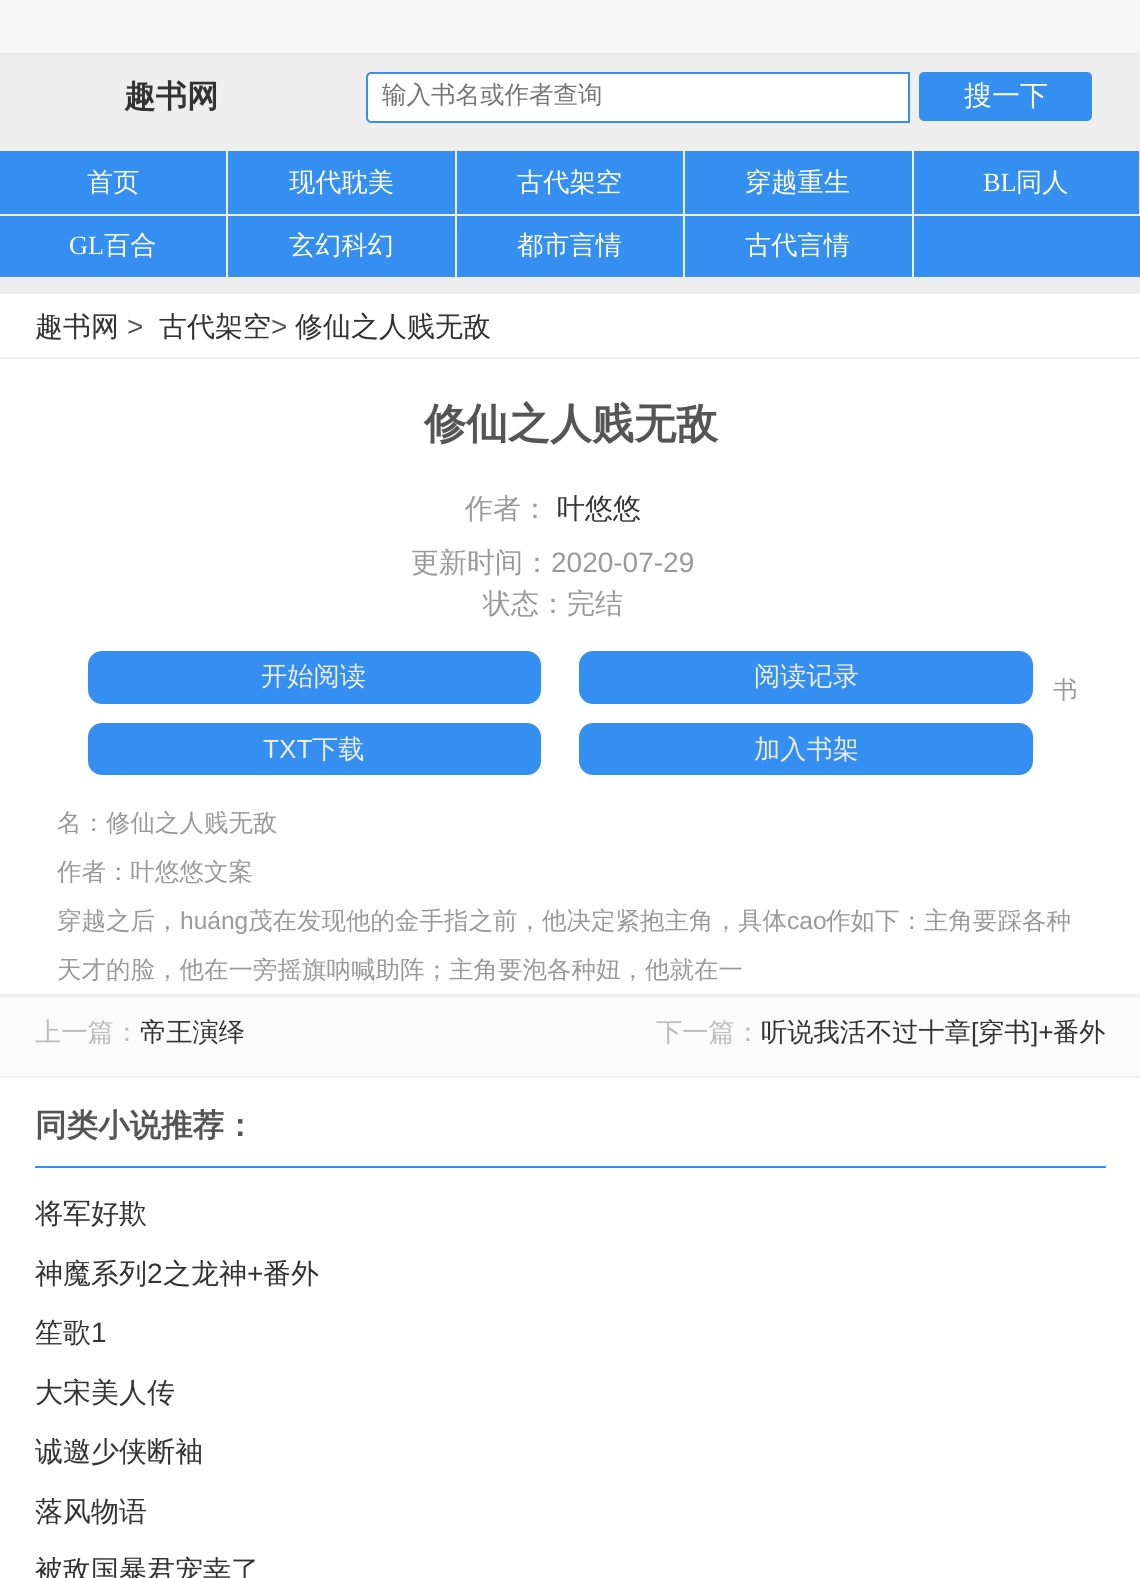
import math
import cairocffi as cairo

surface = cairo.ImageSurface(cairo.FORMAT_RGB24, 1140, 1578)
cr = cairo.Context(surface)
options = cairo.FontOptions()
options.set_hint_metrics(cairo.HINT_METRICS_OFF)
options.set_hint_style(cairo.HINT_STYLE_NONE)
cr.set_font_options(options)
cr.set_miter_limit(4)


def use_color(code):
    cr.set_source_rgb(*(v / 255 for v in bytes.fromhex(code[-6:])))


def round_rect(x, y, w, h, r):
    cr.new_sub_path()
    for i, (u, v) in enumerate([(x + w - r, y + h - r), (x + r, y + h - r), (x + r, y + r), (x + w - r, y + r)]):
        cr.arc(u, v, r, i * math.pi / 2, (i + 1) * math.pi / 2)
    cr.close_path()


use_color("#eeeeee")
cr.paint()
use_color("#f7f7f7")
cr.rectangle(0, 0, 1140, 53)
cr.fill()
use_color("#e8e8e8")
cr.rectangle(0, 53, 1140, 2)
cr.fill()
cr.select_font_face("WenQuanYi Zen Hei", cairo.FONT_SLANT_NORMAL, cairo.FONT_WEIGHT_BOLD)
cr.set_font_size(31.5)
use_color("#333333")
cr.move_to(124, 107)
cr.show_text("趣书网")
use_color("#ffffff")
cr.new_path()
cr.move_to(371, 73)
cr.line_to(909, 73)
cr.line_to(909, 122)
cr.line_to(371, 122)
cr.curve_to(369, 122, 367, 120, 367, 118)
cr.line_to(367, 77)
cr.curve_to(367, 75, 369, 73, 371, 73)
cr.close_path()
cr.fill_preserve()
use_color("#358ff0")
cr.stroke()
cr.select_font_face("WenQuanYi Zen Hei Medium")
cr.set_font_size(24.5)
use_color("#757575")
cr.move_to(382, 103)
cr.show_text("输入书名或作者查询")
use_color("#358ff0")
round_rect(920, 73, 171, 47, 4)
cr.fill_preserve()
cr.stroke()
cr.set_font_size(28)
use_color("#ffffff")
cr.move_to(964, 105)
cr.show_text("搜一下")
use_color("#358ff0")
cr.rectangle(0, 151, 1140, 126)
cr.fill()
use_color("#eeeeee")
cr.rectangle(226, 151, 2, 64)
cr.fill()
cr.rectangle(0, 214, 228, 2)
cr.fill()
cr.set_font_size(26.25)
use_color("#ffffff")
cr.move_to(87, 191)
cr.show_text("首页")
use_color("#eeeeee")
cr.rectangle(455, 151, 2, 64)
cr.fill()
cr.rectangle(228, 214, 229, 2)
cr.fill()
use_color("#ffffff")
cr.move_to(289, 191)
cr.show_text("现代耽美")
use_color("#eeeeee")
cr.rectangle(683, 151, 2, 64)
cr.fill()
cr.rectangle(457, 214, 227, 2)
cr.fill()
use_color("#ffffff")
cr.move_to(517, 191)
cr.show_text("古代架空")
use_color("#eeeeee")
cr.rectangle(912, 151, 2, 64)
cr.fill()
cr.rectangle(684, 214, 230, 2)
cr.fill()
use_color("#ffffff")
cr.move_to(745, 191)
cr.show_text("穿越重生")
use_color("#eeeeee")
cr.rectangle(1139, 151, 1, 64)
cr.fill()
cr.rectangle(914, 214, 226, 2)
cr.fill()
cr.select_font_face("Liberation Serif")
use_color("#ffffff")
cr.move_to(983, 191)
cr.show_text("BL")
cr.select_font_face("WenQuanYi Zen Hei Medium")
cr.move_to(1016, 191)
cr.show_text("同人")
use_color("#eeeeee")
cr.rectangle(226, 214, 2, 63)
cr.fill()
cr.select_font_face("Liberation Serif")
use_color("#ffffff")
cr.move_to(69, 254)
cr.show_text("GL")
cr.select_font_face("WenQuanYi Zen Hei Medium")
cr.move_to(104, 254)
cr.show_text("百合")
use_color("#eeeeee")
cr.rectangle(455, 214, 2, 63)
cr.fill()
use_color("#ffffff")
cr.move_to(289, 254)
cr.show_text("玄幻科幻")
use_color("#eeeeee")
cr.rectangle(683, 214, 2, 63)
cr.fill()
use_color("#ffffff")
cr.move_to(517, 254)
cr.show_text("都市言情")
use_color("#eeeeee")
cr.rectangle(912, 214, 2, 63)
cr.fill()
use_color("#ffffff")
cr.move_to(745, 254)
cr.show_text("古代言情")
cr.rectangle(0, 294, 1140, 1284)
cr.fill()
use_color("#eeeeee")
cr.rectangle(0, 357, 1140, 2)
cr.fill()
cr.set_font_size(28)
use_color("#333333")
cr.move_to(35, 336)
cr.show_text("趣书网")
cr.select_font_face("Liberation Sans")
use_color("#555555")
cr.move_to(127, 336)
cr.show_text(">")
cr.select_font_face("WenQuanYi Zen Hei Medium")
use_color("#333333")
cr.move_to(159, 336)
cr.show_text("古代架空")
cr.select_font_face("Liberation Sans")
use_color("#555555")
cr.move_to(271, 336)
cr.show_text(">")
cr.select_font_face("WenQuanYi Zen Hei Medium")
use_color("#333333")
cr.move_to(295, 336)
cr.show_text("修仙之人贱无敌")
cr.select_font_face("WenQuanYi Zen Hei", cairo.FONT_SLANT_NORMAL, cairo.FONT_WEIGHT_BOLD)
cr.set_font_size(42)
use_color("#555555")
cr.move_to(424, 438)
cr.show_text("修仙之人贱无敌")
use_color("#eeeeee")
cr.rectangle(0, 994, 1140, 2)
cr.fill()
cr.select_font_face("WenQuanYi Zen Hei Medium")
cr.set_font_size(28)
use_color("#999999")
cr.move_to(465, 518)
cr.show_text("作者：")
use_color("#333333")
cr.move_to(557, 518)
cr.show_text("叶悠悠")
use_color("#999999")
cr.move_to(411, 572)
cr.show_text("更新时间：")
cr.select_font_face("Liberation Sans")
cr.move_to(551, 572)
cr.show_text("2020-07-29")
cr.select_font_face("WenQuanYi Zen Hei Medium")
cr.move_to(483, 613)
cr.show_text("状态：完结")
use_color("#358ff0")
round_rect(88, 651, 453, 53, 14)
cr.fill()
cr.set_font_size(26.25)
use_color("#eeeeee")
cr.move_to(261, 685)
cr.show_text("开始阅读")
use_color("#358ff0")
round_rect(579, 651, 454, 53, 14)
cr.fill()
use_color("#eeeeee")
cr.move_to(754, 685)
cr.show_text("阅读记录")
use_color("#358ff0")
round_rect(88, 723, 453, 52, 14)
cr.fill()
cr.select_font_face("Liberation Sans")
use_color("#eeeeee")
cr.move_to(263, 758)
cr.show_text("TXT")
cr.select_font_face("WenQuanYi Zen Hei Medium")
cr.move_to(312, 758)
cr.show_text("下载")
use_color("#358ff0")
round_rect(579, 723, 454, 52, 14)
cr.fill()
use_color("#eeeeee")
cr.move_to(754, 758)
cr.show_text("加入书架")
cr.set_font_size(24.5)
use_color("#999999")
cr.move_to(1053, 698)
cr.show_text("书")
cr.move_to(57, 831)
cr.show_text("名：修仙之人贱无敌")
cr.move_to(57, 880)
cr.show_text("作者：叶悠悠文案")
cr.move_to(57, 929)
cr.show_text("穿越之后，")
cr.select_font_face("Liberation Sans")
cr.move_to(180, 929)
cr.show_text("huáng")
cr.select_font_face("WenQuanYi Zen Hei Medium")
cr.move_to(248, 929)
cr.show_text("茂在发现他的金手指之前，他决定紧抱主角，具体")
cr.select_font_face("Liberation Sans")
cr.move_to(787, 929)
cr.show_text("cao")
cr.select_font_face("WenQuanYi Zen Hei Medium")
cr.move_to(826, 929)
cr.show_text("作如下：主角要踩各种")
cr.move_to(57, 978)
cr.show_text("天才的脸，他在一旁摇旗呐喊助阵；主角要泡各种妞，他就在一")
use_color("#fbfbfb")
cr.rectangle(0, 998, 1140, 78)
cr.fill()
use_color("#f2f2f2")
cr.rectangle(0, 996, 1140, 2)
cr.fill()
cr.set_font_size(26.25)
use_color("#bbbbbb")
cr.move_to(35, 1041)
cr.show_text("上一篇：")
use_color("#333333")
cr.move_to(140, 1041)
cr.show_text("帝王演绎")
use_color("#bbbbbb")
cr.move_to(656, 1041)
cr.show_text("下一篇：")
use_color("#333333")
cr.move_to(761, 1041)
cr.show_text("听说我活不过十章")
cr.select_font_face("Liberation Sans")
cr.move_to(971, 1041)
cr.show_text("[")
cr.select_font_face("WenQuanYi Zen Hei Medium")
cr.move_to(978, 1041)
cr.show_text("穿书")
cr.select_font_face("Liberation Sans")
cr.move_to(1031, 1041)
cr.show_text("]+")
cr.select_font_face("WenQuanYi Zen Hei Medium")
cr.move_to(1053, 1041)
cr.show_text("番外")
use_color("#f2f2f2")
cr.rectangle(0, 1076, 1140, 2)
cr.fill()
use_color("#358ff0")
cr.rectangle(35, 1166, 1071, 2)
cr.fill()
cr.select_font_face("WenQuanYi Zen Hei", cairo.FONT_SLANT_NORMAL, cairo.FONT_WEIGHT_BOLD)
cr.set_font_size(31.5)
use_color("#555555")
cr.move_to(35, 1136)
cr.show_text("同类小说推荐：")
cr.select_font_face("WenQuanYi Zen Hei Medium")
cr.set_font_size(28)
use_color("#333333")
cr.move_to(35, 1223)
cr.show_text("将军好欺")
cr.move_to(35, 1283)
cr.show_text("神魔系列")
cr.select_font_face("Liberation Sans")
cr.move_to(147, 1283)
cr.show_text("2")
cr.select_font_face("WenQuanYi Zen Hei Medium")
cr.move_to(163, 1283)
cr.show_text("之龙神")
cr.select_font_face("Liberation Sans")
cr.move_to(247, 1283)
cr.show_text("+")
cr.select_font_face("WenQuanYi Zen Hei Medium")
cr.move_to(263, 1283)
cr.show_text("番外")
cr.move_to(35, 1342)
cr.show_text("笙歌")
cr.select_font_face("Liberation Sans")
cr.move_to(91, 1342)
cr.show_text("1")
cr.select_font_face("WenQuanYi Zen Hei Medium")
cr.move_to(35, 1402)
cr.show_text("大宋美人传")
cr.move_to(35, 1461)
cr.show_text("诚邀少侠断袖")
cr.move_to(35, 1521)
cr.show_text("落风物语")
cr.move_to(35, 1580)
cr.show_text("被敌国暴君宠幸了")
surface.write_to_png("result.png")
